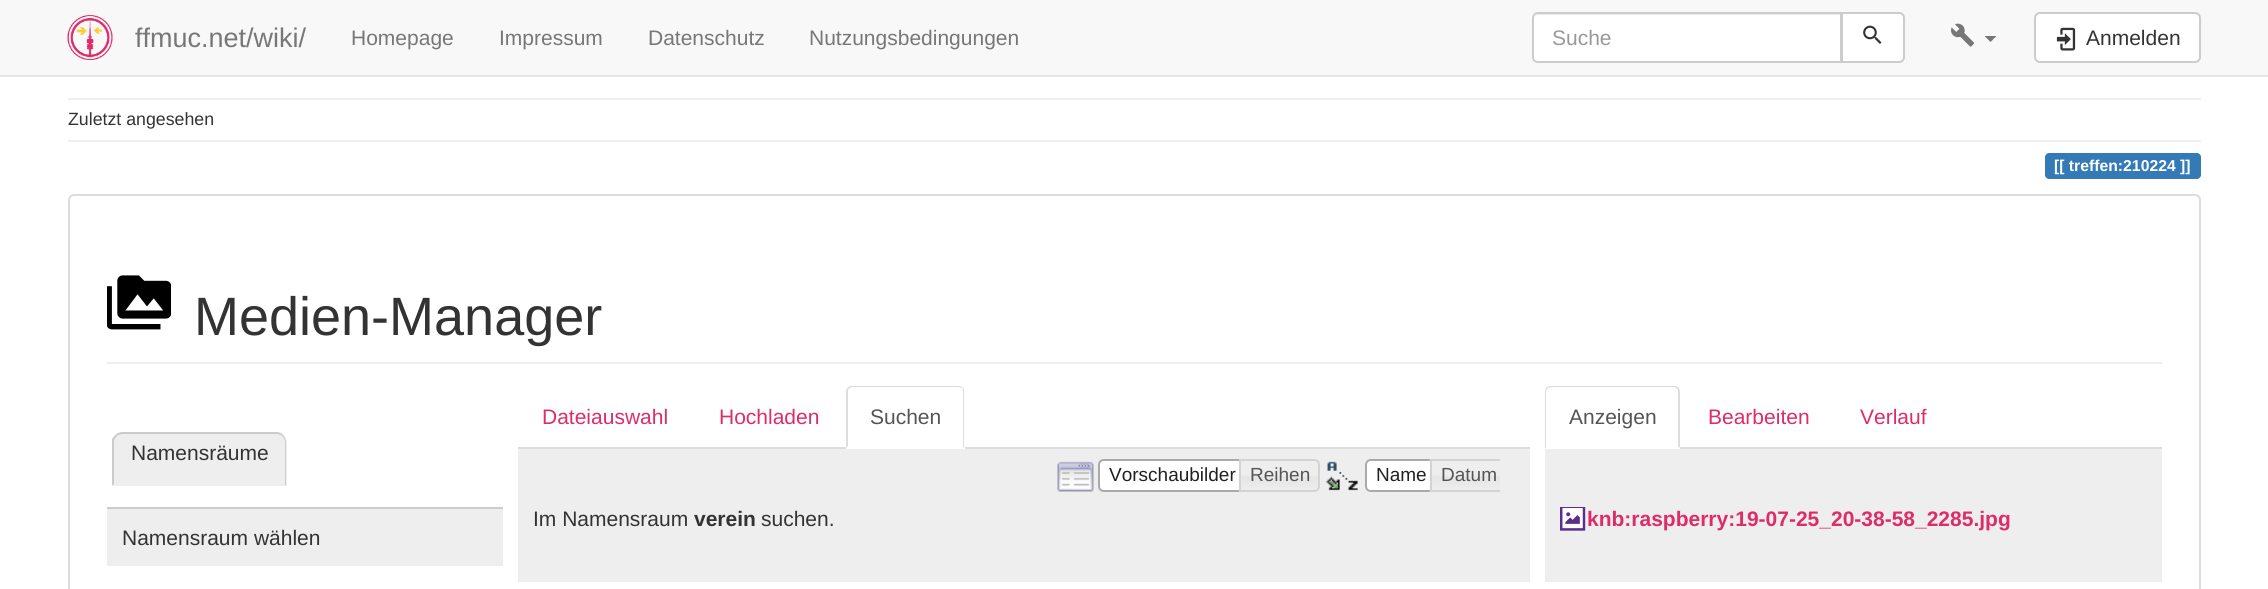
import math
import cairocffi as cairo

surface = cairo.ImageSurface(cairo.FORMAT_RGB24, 2268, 589)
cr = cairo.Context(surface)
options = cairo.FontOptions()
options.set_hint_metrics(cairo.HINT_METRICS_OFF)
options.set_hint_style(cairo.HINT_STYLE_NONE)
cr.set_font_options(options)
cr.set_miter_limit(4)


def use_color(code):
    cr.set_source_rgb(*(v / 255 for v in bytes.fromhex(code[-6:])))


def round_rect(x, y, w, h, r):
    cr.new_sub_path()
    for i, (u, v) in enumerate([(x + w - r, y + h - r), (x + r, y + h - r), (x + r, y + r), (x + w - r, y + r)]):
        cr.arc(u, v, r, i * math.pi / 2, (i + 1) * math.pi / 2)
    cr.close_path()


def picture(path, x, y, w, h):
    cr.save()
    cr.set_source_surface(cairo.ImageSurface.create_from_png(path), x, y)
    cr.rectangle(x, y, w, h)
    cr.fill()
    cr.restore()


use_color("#ffffff")
cr.paint()
use_color("#f8f8f8")
cr.rectangle(0, 0, 2268, 75)
cr.fill()
use_color("#e7e7e7")
cr.rectangle(0, 75, 2268, 2)
cr.fill()
picture("img1.png", 67, 15, 46, 45)
cr.select_font_face("Liberation Sans")
cr.set_font_size(27)
use_color("#777777")
cr.move_to(135, 47)
cr.show_text("ffmuc.net/wiki/")
cr.set_font_size(21)
cr.move_to(351, 45)
cr.show_text("Homepage")
cr.move_to(499, 45)
cr.show_text("Impressum")
cr.move_to(648, 45)
cr.show_text("Datenschutz")
cr.move_to(809, 45)
cr.show_text("Nutzungsbedingungen")
use_color("#ffffff")
cr.new_path()
cr.move_to(1538, 12)
cr.line_to(1842, 12)
cr.line_to(1842, 63)
cr.line_to(1538, 63)
cr.curve_to(1534.5, 63, 1532, 60.5, 1532, 57)
cr.line_to(1532, 18)
cr.curve_to(1532, 14.5, 1534.5, 12, 1538, 12)
cr.close_path()
cr.fill()
use_color("#ececec")
cr.new_path()
cr.move_to(1538, 15)
cr.line_to(1840, 15)
cr.line_to(1840, 62)
cr.line_to(1841, 62)
cr.line_to(1841, 14)
cr.line_to(1538, 14)
cr.curve_to(1535, 14, 1533, 17, 1533, 20)
cr.curve_to(1533, 17, 1535, 15, 1538, 15)
cr.close_path()
cr.fill()
cr.new_path()
cr.move_to(1538, 13)
cr.line_to(1841, 13)
cr.line_to(1841, 62)
cr.line_to(1538, 62)
cr.curve_to(1535, 62, 1533, 60, 1533, 57)
cr.line_to(1533, 18)
cr.curve_to(1533, 15, 1535, 13, 1538, 13)
cr.close_path()
use_color("#cccccc")
cr.stroke()
use_color("#999999")
cr.move_to(1552, 45)
cr.show_text("Suche")
use_color("#ffffff")
cr.new_path()
cr.move_to(1842, 13)
cr.line_to(1899, 13)
cr.curve_to(1902, 13, 1904, 15, 1904, 18)
cr.line_to(1904, 57)
cr.curve_to(1904, 60, 1902, 62, 1899, 62)
cr.line_to(1842, 62)
cr.close_path()
cr.fill_preserve()
use_color("#cccccc")
cr.stroke()
picture("img2.png", 1863, 25, 19, 19)
picture("img3.png", 1951, 23, 24, 24)
use_color("#777777")
cr.new_path()
cr.move_to(1984.5, 36)
cr.line_to(1996.5, 36)
cr.line_to(1990.5, 42)
cr.close_path()
cr.fill()
use_color("#ffffff")
round_rect(2035, 13, 165, 49, 5)
cr.fill_preserve()
use_color("#cccccc")
cr.stroke()
picture("img4.png", 2056, 27, 20, 24)
use_color("#333333")
cr.move_to(2086, 45)
cr.show_text("Anmelden")
use_color("#eeeeee")
cr.rectangle(68, 98, 2133, 2)
cr.fill()
cr.set_font_size(17.75)
use_color("#333333")
cr.move_to(68, 125)
cr.show_text("Zuletzt angesehen")
use_color("#eeeeee")
cr.rectangle(68, 140, 2133, 2)
cr.fill()
use_color("#337ab7")
cr.new_path()
cr.move_to(2049, 153)
cr.line_to(2070, 153)
cr.line_to(2070, 179)
cr.line_to(2049, 179)
cr.curve_to(2047, 179, 2045, 177, 2045, 175)
cr.line_to(2045, 157)
cr.curve_to(2045, 155, 2047, 153, 2049, 153)
cr.close_path()
cr.fill()
cr.rectangle(2070, 153, 107, 26)
cr.fill()
cr.new_path()
cr.move_to(2177, 153)
cr.line_to(2197, 153)
cr.curve_to(2199, 153, 2201, 155, 2201, 157)
cr.line_to(2201, 175)
cr.curve_to(2201, 177, 2199, 179, 2197, 179)
cr.line_to(2177, 179)
cr.close_path()
cr.fill()
cr.select_font_face("Liberation Sans", cairo.FONT_SLANT_NORMAL, cairo.FONT_WEIGHT_BOLD)
cr.set_font_size(15.75)
use_color("#ffffff")
cr.move_to(2054, 171)
cr.show_text("[[ treffen:210224 ]]")
round_rect(69, 195, 2131, 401, 5)
use_color("#dddddd")
cr.stroke()
use_color("#eeeeee")
cr.rectangle(107, 362, 2055, 2)
cr.fill()
picture("img5.png", 107, 275, 64, 55)
cr.select_font_face("Liberation Sans")
cr.set_font_size(54)
use_color("#333333")
cr.move_to(194, 335)
cr.show_text("Medien-Manager")
use_color("#eeeeee")
cr.new_path()
cr.move_to(124, 432)
cr.line_to(276, 432)
cr.curve_to(282, 432, 287, 437, 287, 443)
cr.line_to(287, 486)
cr.line_to(113, 486)
cr.line_to(113, 443)
cr.curve_to(113, 437, 118, 432, 124, 432)
cr.close_path()
cr.fill()
use_color("#cccccc")
cr.new_path()
cr.move_to(123, 432)
cr.curve_to(120, 432, 117, 433, 115, 435)
cr.line_to(117, 436)
cr.curve_to(118, 435, 121, 434, 123, 434)
cr.line_to(276, 434)
cr.curve_to(278, 434, 281, 435, 282, 436)
cr.line_to(283, 435)
cr.curve_to(282, 433, 279, 432, 276, 432)
cr.close_path()
cr.fill()
cr.new_path()
cr.move_to(283, 435)
cr.curve_to(285, 437, 286, 440, 286, 442)
cr.line_to(286, 486)
cr.line_to(284, 484)
cr.line_to(285, 484)
cr.line_to(285, 442)
cr.curve_to(285, 440, 284, 438, 282, 436)
cr.close_path()
cr.fill()
use_color("#eeeeee")
cr.new_path()
cr.move_to(112, 486)
cr.line_to(286, 486)
cr.line_to(284, 484)
cr.line_to(114, 484)
cr.close_path()
cr.fill()
use_color("#cccccc")
cr.new_path()
cr.move_to(112, 486)
cr.line_to(112, 439)
cr.line_to(115, 435)
cr.line_to(117, 436)
cr.curve_to(115, 438, 114, 440, 114, 442)
cr.line_to(114, 484)
cr.close_path()
cr.fill()
cr.set_font_size(21)
use_color("#333333")
cr.move_to(131, 460)
cr.show_text("Namensräume")
use_color("#eeeeee")
cr.rectangle(107, 509, 396, 57)
cr.fill()
use_color("#cccccc")
cr.rectangle(107, 507, 396, 2)
cr.fill()
use_color("#333333")
cr.move_to(122, 545)
cr.show_text("Namensraum wählen")
use_color("#dddddd")
cr.rectangle(518, 447, 1012, 2)
cr.fill()
use_color("#de2c68")
cr.move_to(542, 424)
cr.show_text("Dateiauswahl")
cr.move_to(719, 424)
cr.show_text("Hochladen")
use_color("#ffffff")
cr.new_path()
cr.move_to(852, 386)
cr.line_to(959, 386)
cr.curve_to(962.5, 386, 965, 388.5, 965, 392)
cr.line_to(965, 449)
cr.line_to(846, 449)
cr.line_to(846, 392)
cr.curve_to(846, 388.5, 848.5, 386, 852, 386)
cr.close_path()
cr.fill()
use_color("#dddddd")
cr.new_path()
cr.move_to(852, 386)
cr.curve_to(851, 386, 849, 386, 848, 387)
cr.line_to(849, 389)
cr.curve_to(850, 388, 851, 387, 852, 387)
cr.line_to(958, 387)
cr.curve_to(960, 387, 961, 388, 962, 388)
cr.curve_to(962, 386, 960, 386, 958, 386)
cr.close_path()
cr.fill()
cr.new_path()
cr.move_to(964, 448)
cr.line_to(964, 392)
cr.curve_to(964, 390, 964, 388, 962, 388)
cr.curve_to(962, 389, 963, 390, 963, 392)
cr.line_to(963, 447)
cr.close_path()
cr.fill()
cr.new_path()
cr.move_to(846, 392)
cr.line_to(846, 448)
cr.line_to(848, 446)
cr.line_to(848, 392)
cr.curve_to(848, 391, 848, 389, 849, 389)
cr.line_to(848, 387)
cr.curve_to(847, 388, 846, 390, 846, 392)
cr.close_path()
cr.fill()
use_color("#555555")
cr.move_to(870, 424)
cr.show_text("Suchen")
use_color("#eeeeee")
cr.rectangle(518, 449, 1012, 133)
cr.fill()
picture("img6.png", 1057, 461, 37, 31)
use_color("#ffffff")
cr.new_path()
cr.move_to(1104, 460)
cr.line_to(1246, 460)
cr.line_to(1246, 491)
cr.line_to(1104, 491)
cr.curve_to(1101, 491, 1099, 489, 1099, 486)
cr.line_to(1099, 465)
cr.curve_to(1099, 462, 1101, 460, 1104, 460)
cr.close_path()
cr.fill_preserve()
use_color("#aaaaaa")
cr.stroke()
cr.set_font_size(19)
use_color("#212121")
cr.move_to(1109, 481)
cr.show_text("Vorschaubilder")
picture("img7.png", 1241, 459, 79, 33)
cr.new_path()
cr.move_to(1240, 460)
cr.line_to(1314, 460)
cr.curve_to(1317, 460, 1319, 462, 1319, 465)
cr.line_to(1319, 486)
cr.curve_to(1319, 489, 1317, 491, 1314, 491)
cr.line_to(1240, 491)
cr.close_path()
use_color("#d3d3d3")
cr.stroke()
use_color("#555555")
cr.move_to(1250, 481)
cr.show_text("Reihen")
picture("img8.png", 1325, 461, 33, 30)
use_color("#ffffff")
cr.new_path()
cr.move_to(1371, 460)
cr.line_to(1436, 460)
cr.line_to(1436, 491)
cr.line_to(1371, 491)
cr.curve_to(1368, 491, 1366, 489, 1366, 486)
cr.line_to(1366, 465)
cr.curve_to(1366, 462, 1368, 460, 1371, 460)
cr.close_path()
cr.fill_preserve()
use_color("#aaaaaa")
cr.stroke()
use_color("#212121")
cr.move_to(1376, 481)
cr.show_text("Name")
picture("img9.png", 1429, 459, 71, 33)
cr.save()
cr.rectangle(1046, 459, 454, 33)
cr.clip()
cr.new_path()
cr.move_to(1431, 460)
cr.line_to(1502, 460)
cr.curve_to(1505, 460, 1507, 462, 1507, 465)
cr.line_to(1507, 486)
cr.curve_to(1507, 489, 1505, 491, 1502, 491)
cr.line_to(1431, 491)
cr.close_path()
use_color("#d3d3d3")
cr.stroke()
cr.restore()
use_color("#555555")
cr.move_to(1441, 481)
cr.show_text("Datum")
cr.set_font_size(21)
use_color("#333333")
cr.move_to(533, 526)
cr.show_text("Im Namensraum")
cr.select_font_face("Liberation Sans", cairo.FONT_SLANT_NORMAL, cairo.FONT_WEIGHT_BOLD)
cr.move_to(694, 526)
cr.show_text("verein")
cr.select_font_face("Liberation Sans")
cr.move_to(761, 526)
cr.show_text("suchen.")
use_color("#dddddd")
cr.rectangle(1680, 447, 482, 2)
cr.fill()
cr.new_path()
cr.move_to(1551, 386)
cr.curve_to(1550, 386, 1548, 386, 1547, 387)
cr.line_to(1548, 388)
cr.line_to(1551, 387)
cr.line_to(1675, 387)
cr.line_to(1677, 389)
cr.line_to(1678, 387)
cr.curve_to(1677, 386, 1675, 386, 1674, 386)
cr.close_path()
cr.fill()
cr.new_path()
cr.move_to(1678, 387)
cr.curve_to(1679, 388, 1680, 390, 1680, 392)
cr.line_to(1680, 448)
cr.line_to(1678, 446)
cr.line_to(1678, 392)
cr.curve_to(1678, 391, 1678, 389, 1677, 389)
cr.close_path()
cr.fill()
cr.new_path()
cr.move_to(1545, 392)
cr.line_to(1545, 448)
cr.line_to(1546, 448)
cr.line_to(1546, 447)
cr.line_to(1546, 391)
cr.line_to(1548, 388)
cr.line_to(1547, 387)
cr.curve_to(1546, 388, 1545, 390, 1545, 392)
cr.close_path()
cr.fill()
use_color("#555555")
cr.move_to(1569, 424)
cr.show_text("Anzeigen")
use_color("#de2c68")
cr.move_to(1708, 424)
cr.show_text("Bearbeiten")
cr.move_to(1860, 424)
cr.show_text("Verlauf")
use_color("#eeeeee")
cr.rectangle(1545, 449, 617, 133)
cr.fill()
picture("img10.png", 1560, 507, 26, 24)
cr.select_font_face("Liberation Sans", cairo.FONT_SLANT_NORMAL, cairo.FONT_WEIGHT_BOLD)
use_color("#de2c68")
cr.move_to(1587, 526)
cr.show_text("knb:raspberry:19-07-25_20-38-58_2285.jpg")
surface.write_to_png("result.png")
